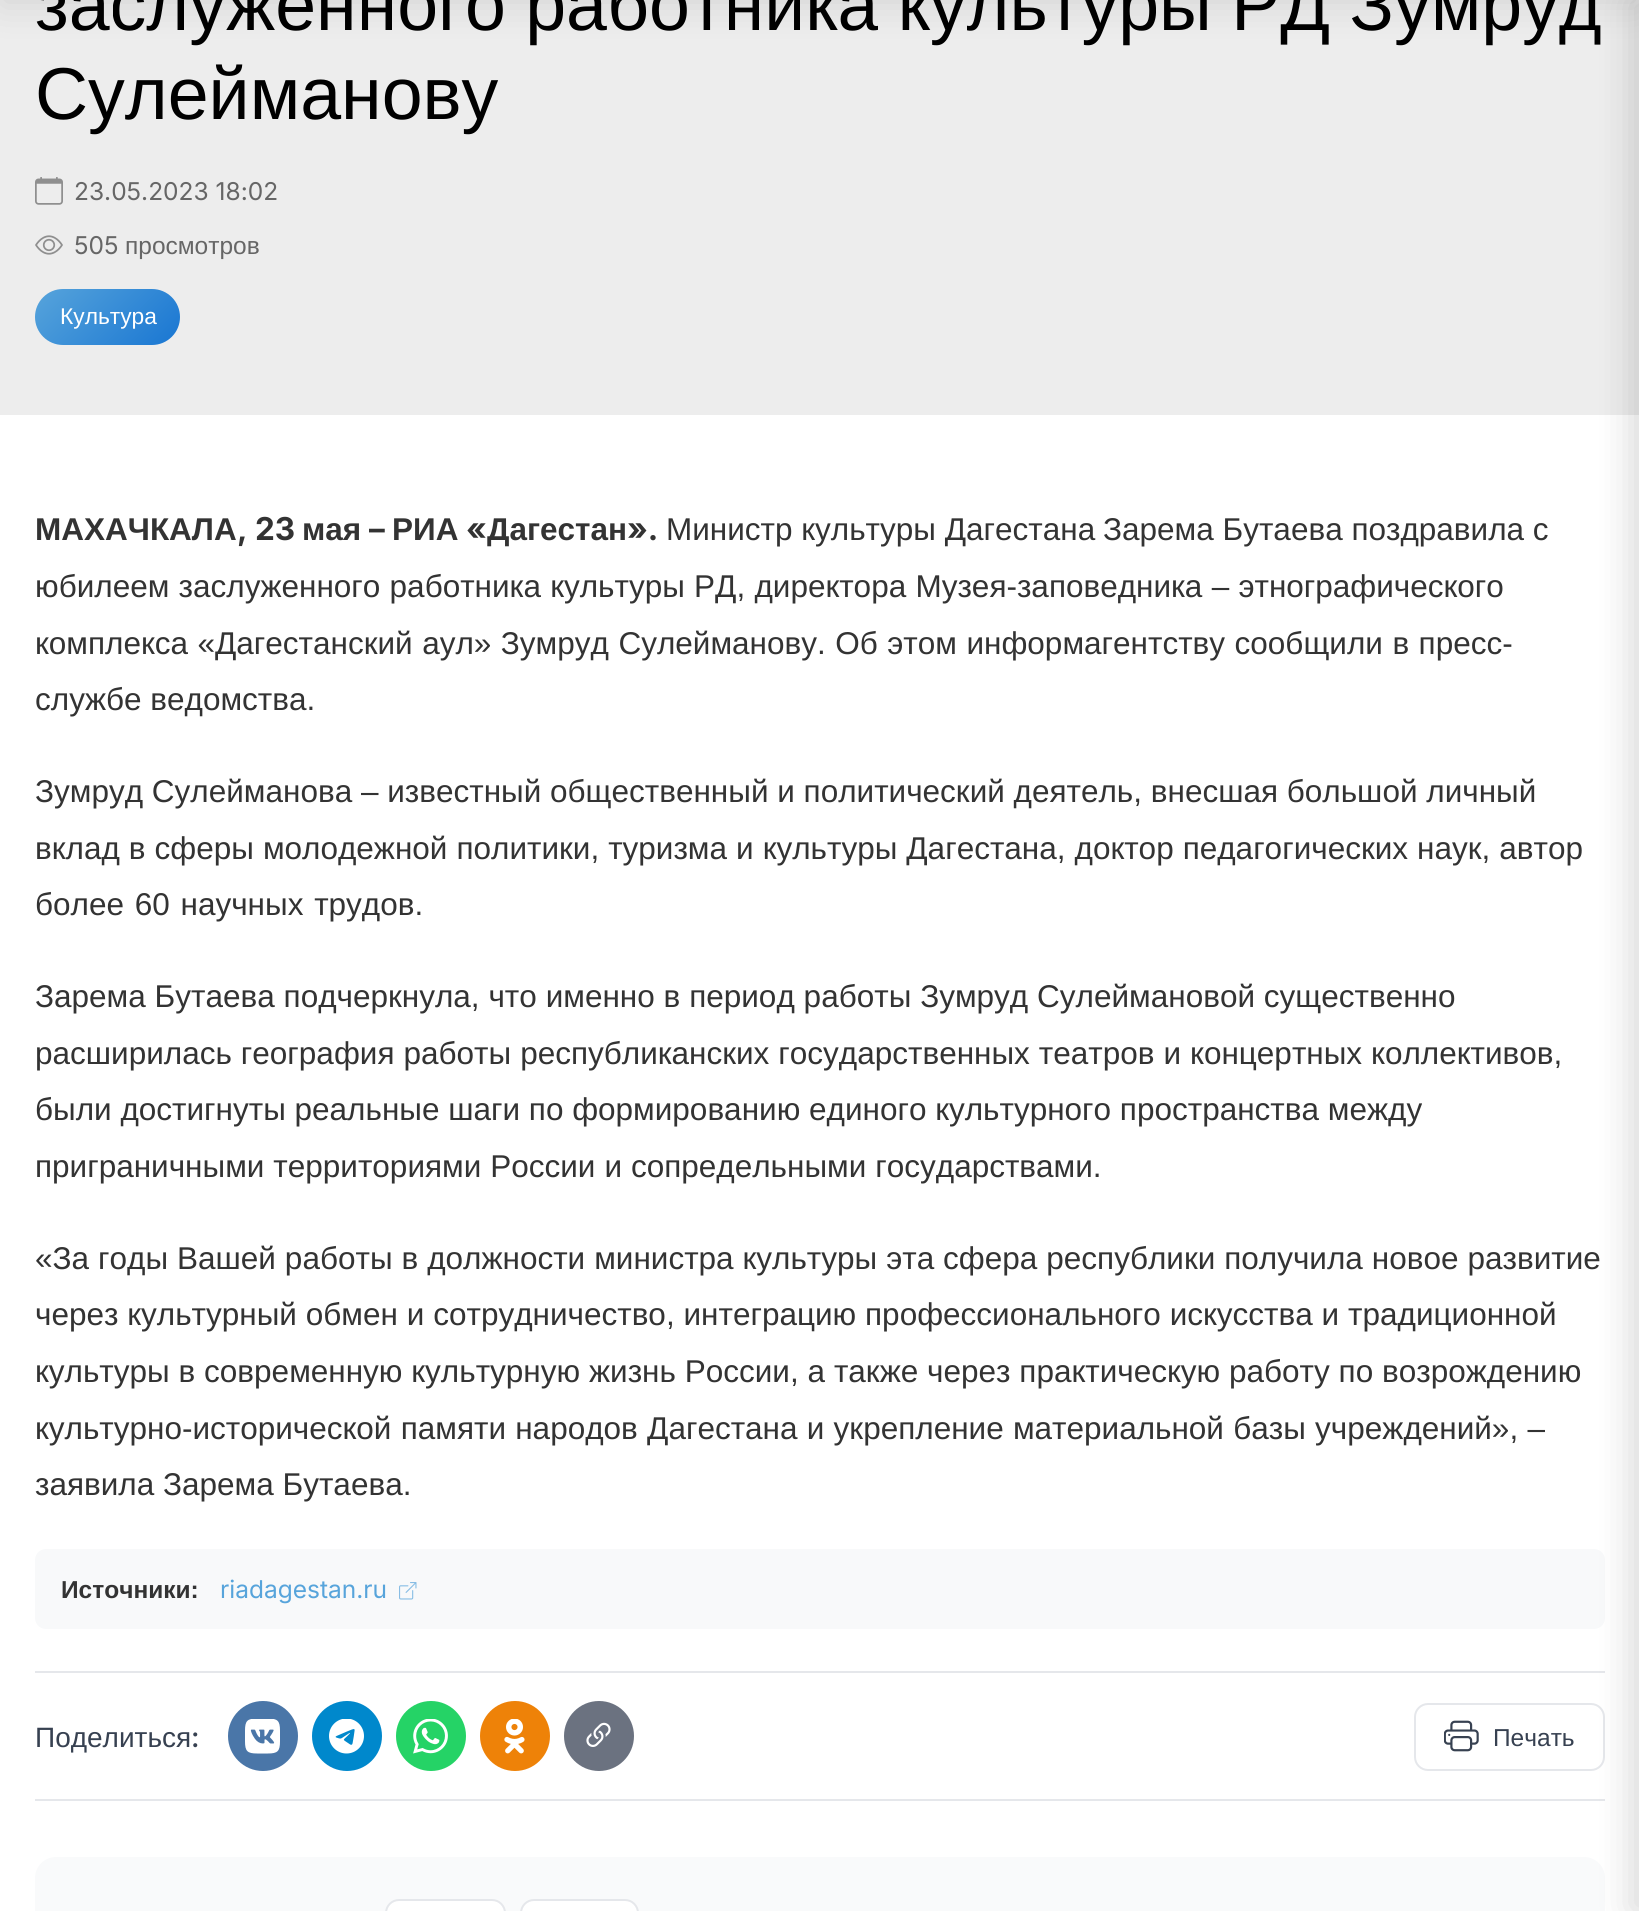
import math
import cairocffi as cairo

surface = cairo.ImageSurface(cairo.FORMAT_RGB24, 1639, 1911)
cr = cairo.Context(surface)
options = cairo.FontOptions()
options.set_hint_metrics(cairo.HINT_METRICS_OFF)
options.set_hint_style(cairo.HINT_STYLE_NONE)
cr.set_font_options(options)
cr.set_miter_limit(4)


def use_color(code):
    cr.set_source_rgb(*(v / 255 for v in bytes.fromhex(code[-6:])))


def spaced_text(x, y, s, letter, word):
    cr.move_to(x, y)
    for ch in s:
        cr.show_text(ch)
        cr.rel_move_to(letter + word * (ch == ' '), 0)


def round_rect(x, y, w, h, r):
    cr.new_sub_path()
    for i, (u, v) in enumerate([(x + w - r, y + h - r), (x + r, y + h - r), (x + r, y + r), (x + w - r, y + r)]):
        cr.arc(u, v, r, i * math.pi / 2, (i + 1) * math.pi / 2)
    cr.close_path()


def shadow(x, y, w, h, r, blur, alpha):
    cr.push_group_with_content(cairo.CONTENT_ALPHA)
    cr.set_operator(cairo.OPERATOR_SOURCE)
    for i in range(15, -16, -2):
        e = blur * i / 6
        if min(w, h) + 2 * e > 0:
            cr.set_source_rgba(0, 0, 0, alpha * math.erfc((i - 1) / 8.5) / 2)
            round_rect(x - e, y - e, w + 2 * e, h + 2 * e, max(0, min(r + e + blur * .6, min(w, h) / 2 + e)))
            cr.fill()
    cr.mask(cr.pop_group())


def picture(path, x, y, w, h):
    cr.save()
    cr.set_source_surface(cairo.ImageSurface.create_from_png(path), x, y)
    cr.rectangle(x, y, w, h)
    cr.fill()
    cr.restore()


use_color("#ededed")
cr.paint()
use_color("#000000")
shadow(0, -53, 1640, 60, 0, 17.5, 0.1)
cr.select_font_face("Liberation Sans")
cr.set_font_size(73.5)
use_color("#000000")
spaced_text(35, 30, "заслуженного работника культуры РД Зумруд", 0, -1)
cr.move_to(35, 119)
cr.show_text("Сулейманову")
picture("img1.png", 35, 177, 28, 28)
cr.select_font_face("Inter")
cr.set_font_size(24.5)
use_color("#666666")
cr.move_to(74, 200)
cr.show_text("23.05.2023 18:02")
picture("img2.png", 35, 235, 28, 20)
cr.move_to(74, 254)
cr.show_text("505")
cr.select_font_face("Liberation Sans")
cr.move_to(125, 254)
cr.show_text("просмотров")
gradient = cairo.LinearGradient(57, 266, 158, 367)
gradient.add_color_stop_rgba(0, 0.341, 0.643, 0.859, 1)
gradient.add_color_stop_rgba(1, 0.098, 0.463, 0.824, 1)
cr.set_source(gradient)
round_rect(35, 289, 145, 56, 28)
cr.fill()
cr.set_font_size(22.75)
use_color("#ffffff")
cr.move_to(60, 324)
cr.show_text("Культура")
cr.rectangle(0, 415, 1639, 1496)
cr.fill()
cr.select_font_face("Liberation Sans", cairo.FONT_SLANT_NORMAL, cairo.FONT_WEIGHT_BOLD)
cr.set_font_size(31.5)
use_color("#333333")
cr.move_to(35, 540)
cr.show_text("МАХАЧКАЛА")
cr.select_font_face("Inter", cairo.FONT_SLANT_NORMAL, cairo.FONT_WEIGHT_BOLD)
cr.move_to(237, 540)
cr.show_text(", 23")
cr.select_font_face("Liberation Sans", cairo.FONT_SLANT_NORMAL, cairo.FONT_WEIGHT_BOLD)
cr.move_to(302, 540)
cr.show_text("мая")
cr.select_font_face("Inter", cairo.FONT_SLANT_NORMAL, cairo.FONT_WEIGHT_BOLD)
cr.move_to(369, 540)
cr.show_text("–")
cr.select_font_face("Liberation Sans", cairo.FONT_SLANT_NORMAL, cairo.FONT_WEIGHT_BOLD)
cr.move_to(392, 540)
cr.show_text("РИА")
cr.select_font_face("Inter", cairo.FONT_SLANT_NORMAL, cairo.FONT_WEIGHT_BOLD)
cr.move_to(466, 540)
cr.show_text("«")
cr.select_font_face("Liberation Sans", cairo.FONT_SLANT_NORMAL, cairo.FONT_WEIGHT_BOLD)
cr.move_to(487, 540)
cr.show_text("Дагестан")
cr.select_font_face("Inter", cairo.FONT_SLANT_NORMAL, cairo.FONT_WEIGHT_BOLD)
cr.move_to(627, 540)
cr.show_text("».")
cr.select_font_face("Liberation Sans")
cr.move_to(666, 540)
cr.show_text("Министр культуры Дагестана")
cr.move_to(1103, 540)
cr.show_text("Зарема Бутаева поздравила с")
spaced_text(35, 597, "юбилеем заслуженного работника культуры РД, директора Музея-заповедника – этнографического", 0, 0.5)
spaced_text(35, 654, "комплекса «Дагестанский аул» Зумруд Сулейманову. Об этом информагентству сообщили в пресс-", 0, 0.75)
cr.move_to(35, 710)
cr.show_text("службе ведомства.")
cr.move_to(35, 802)
cr.show_text("Зумруд Сулейманова – известный общественный и политический деятель, внесшая большой личный")
spaced_text(35, 859, "вклад в сферы молодежной политики, туризма и культуры Дагестана, доктор педагогических наук, автор", 0, 0.25)
spaced_text(35, 915, "более 60 научных трудов.", 0, 2)
spaced_text(35, 1007, "Зарема Бутаева подчеркнула, что именно в период работы Зумруд Сулеймановой существенно", 0, 0.1)
spaced_text(35, 1064, "расширилась география работы республиканских государственных театров и концертных коллективов,", 0, 0.25)
cr.move_to(35, 1120)
cr.show_text("были достигнуты реальные шаги по формированию единого культурного пространства между")
spaced_text(35, 1177, "приграничными территориями России и сопредельными государствами.", 0, 0.2)
spaced_text(35, 1269, "«За годы Вашей работы в должности министра культуры эта сфера республики получила новое развитие", 0, 0.2)
spaced_text(35, 1325, "через культурный обмен и сотрудничество, интеграцию профессионального искусства и традиционной", 0, 0.1)
spaced_text(35, 1382, "культуры в современную культурную жизнь России, а также через практическую работу по возрождению", 0, 0.1)
spaced_text(35, 1439, "культурно-исторической памяти народов Дагестана и укрепление материальной базы учреждений», –", 0, 0.5)
cr.move_to(35, 1495)
cr.show_text("заявила Зарема Бутаева.")
use_color("#f8f9fa")
round_rect(35, 1549, 1570, 80, 11)
cr.fill()
cr.select_font_face("Liberation Sans", cairo.FONT_SLANT_NORMAL, cairo.FONT_WEIGHT_BOLD)
cr.set_font_size(24.5)
use_color("#333333")
cr.move_to(61, 1598)
cr.show_text("Источники:")
cr.select_font_face("Inter")
use_color("#57a4db")
cr.move_to(220, 1598)
cr.show_text("riadagestan.ru")
picture("img3.png", 399, 1582, 18, 18)
use_color("#e5e7eb")
cr.rectangle(35, 1671, 1570, 2)
cr.fill()
cr.rectangle(35, 1799, 1570, 2)
cr.fill()
cr.select_font_face("Liberation Sans")
cr.set_font_size(28)
use_color("#374151")
cr.move_to(35, 1747)
cr.show_text("Поделиться")
cr.select_font_face("Inter Medium")
cr.move_to(191, 1747)
cr.show_text(":")
use_color("#4a76a8")
cr.new_path()
cr.arc(263, 1736, 35, 0, 2 * math.pi)
cr.fill()
picture("img4.png", 245, 1719, 35, 35)
use_color("#0088cc")
cr.arc(347, 1736, 35, 0, 2 * math.pi)
cr.fill()
picture("img5.png", 329, 1719, 35, 35)
use_color("#25d366")
cr.arc(431, 1736, 35, 0, 2 * math.pi)
cr.fill()
picture("img6.png", 413, 1719, 35, 35)
use_color("#ee8208")
cr.arc(515, 1736, 35, 0, 2 * math.pi)
cr.fill()
picture("img7.png", 504, 1719, 21, 35)
use_color("#6b7280")
cr.arc(599, 1736, 35, 0, 2 * math.pi)
cr.fill()
picture("img8.png", 586, 1722, 25, 25)
round_rect(1415, 1704, 189, 66, 13)
use_color("#e5e7eb")
cr.stroke()
picture("img9.png", 1444, 1720, 35, 32)
cr.select_font_face("Liberation Sans")
cr.set_font_size(24.5)
use_color("#374151")
cr.move_to(1493, 1746)
cr.show_text("Печать")
use_color("#f9fafb")
round_rect(35, 1857, 1570, 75, 21)
cr.fill()
use_color("#ffffff")
round_rect(386, 1900, 119, 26, 13)
cr.fill_preserve()
use_color("#e5e7eb")
cr.stroke()
use_color("#ffffff")
round_rect(521, 1900, 117, 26, 13)
cr.fill_preserve()
use_color("#e5e7eb")
cr.stroke()
use_color("#000000")
shadow(1631, 0, 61, 1911, 0, 17.5, 0.15)
surface.write_to_png("result.png")
